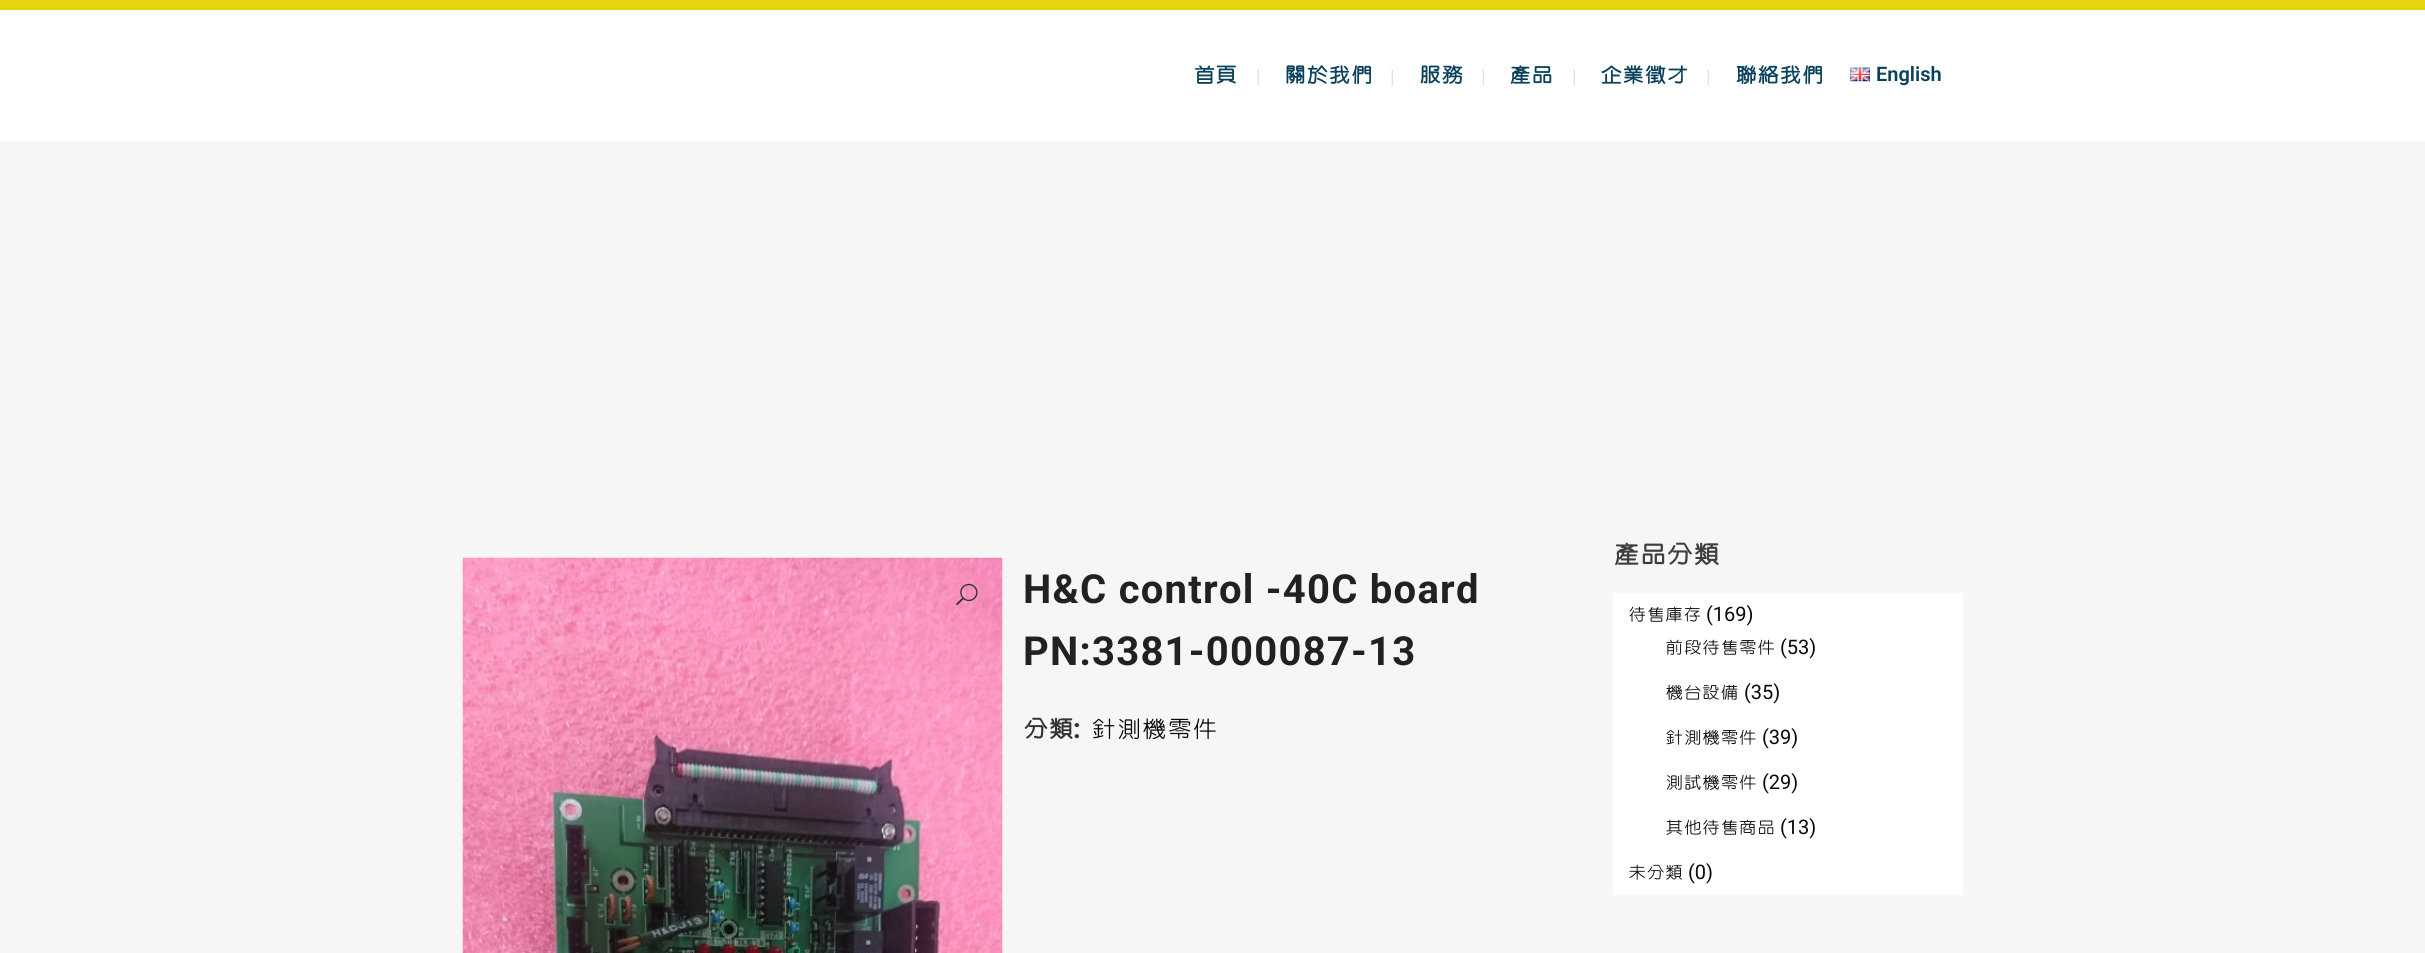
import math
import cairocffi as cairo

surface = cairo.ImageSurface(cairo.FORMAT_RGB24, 2425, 953)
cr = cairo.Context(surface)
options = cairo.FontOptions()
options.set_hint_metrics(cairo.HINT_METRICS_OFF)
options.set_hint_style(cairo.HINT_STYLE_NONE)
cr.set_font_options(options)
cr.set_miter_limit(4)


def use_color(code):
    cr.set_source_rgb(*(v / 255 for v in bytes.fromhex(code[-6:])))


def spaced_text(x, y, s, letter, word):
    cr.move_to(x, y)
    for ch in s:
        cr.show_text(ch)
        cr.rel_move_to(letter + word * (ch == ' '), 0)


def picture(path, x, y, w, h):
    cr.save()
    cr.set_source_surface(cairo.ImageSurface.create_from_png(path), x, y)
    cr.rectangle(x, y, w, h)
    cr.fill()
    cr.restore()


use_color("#f6f6f6")
cr.paint()
use_color("#e6d410")
cr.rectangle(0, 0, 2425, 10)
cr.fill()
use_color("#ffffff")
cr.rectangle(0, 10, 2425, 131)
cr.fill()
cr.select_font_face("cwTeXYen", cairo.FONT_SLANT_NORMAL, cairo.FONT_WEIGHT_BOLD)
cr.set_font_size(24)
use_color("#09405b")
cr.move_to(1193, 83)
cr.show_text("首頁")
cr.select_font_face("Roboto")
cr.set_font_size(19)
use_color("#e1e1e1")
cr.move_to(1256, 83)
cr.show_text("|")
cr.select_font_face("cwTeXYen", cairo.FONT_SLANT_NORMAL, cairo.FONT_WEIGHT_BOLD)
cr.set_font_size(24)
use_color("#09405b")
cr.move_to(1284, 83)
cr.show_text("關於我們")
cr.select_font_face("Roboto")
cr.set_font_size(19)
use_color("#e1e1e1")
cr.move_to(1390, 83)
cr.show_text("|")
cr.select_font_face("cwTeXYen", cairo.FONT_SLANT_NORMAL, cairo.FONT_WEIGHT_BOLD)
cr.set_font_size(24)
use_color("#09405b")
cr.move_to(1419, 83)
cr.show_text("服務")
cr.select_font_face("Roboto")
cr.set_font_size(19)
use_color("#e1e1e1")
cr.move_to(1481, 83)
cr.show_text("|")
cr.select_font_face("cwTeXYen", cairo.FONT_SLANT_NORMAL, cairo.FONT_WEIGHT_BOLD)
cr.set_font_size(24)
use_color("#09405b")
cr.move_to(1509, 83)
cr.show_text("產品")
cr.select_font_face("Roboto")
cr.set_font_size(19)
use_color("#e1e1e1")
cr.move_to(1572, 83)
cr.show_text("|")
cr.select_font_face("cwTeXYen", cairo.FONT_SLANT_NORMAL, cairo.FONT_WEIGHT_BOLD)
cr.set_font_size(24)
use_color("#09405b")
cr.move_to(1600, 83)
cr.show_text("企業徵才")
cr.select_font_face("Roboto")
cr.set_font_size(19)
use_color("#e1e1e1")
cr.move_to(1706, 83)
cr.show_text("|")
cr.select_font_face("cwTeXYen", cairo.FONT_SLANT_NORMAL, cairo.FONT_WEIGHT_BOLD)
cr.set_font_size(24)
use_color("#09405b")
cr.move_to(1735, 83)
cr.show_text("聯絡我們")
picture("img1.png", 1849, 67, 21, 15)
cr.select_font_face("Roboto SemiBold")
cr.set_font_size(20)
cr.move_to(1876, 81)
cr.show_text("English")
picture("img2.png", 462, 557, 541, 396)
picture("img3.png", 956, 583, 22, 23)
cr.select_font_face("Roboto", cairo.FONT_SLANT_NORMAL, cairo.FONT_WEIGHT_BOLD)
cr.set_font_size(40)
use_color("#212121")
spaced_text(1023, 603, "H&C control -40C board", 1.25, 0)
spaced_text(1023, 665, "PN:3381-000087-13", 1.25, 0)
cr.select_font_face("cwTeXYen", cairo.FONT_SLANT_NORMAL, cairo.FONT_WEIGHT_BOLD)
cr.set_font_size(27.5)
use_color("#333333")
cr.move_to(1023, 738)
cr.show_text("分類")
cr.select_font_face("Roboto", cairo.FONT_SLANT_NORMAL, cairo.FONT_WEIGHT_BOLD)
cr.move_to(1073, 738)
cr.show_text(":")
cr.select_font_face("cwTeXYen Medium")
use_color("#0a0909")
cr.move_to(1091, 738)
cr.show_text("針測機零件")
cr.select_font_face("cwTeXYen", cairo.FONT_SLANT_NORMAL, cairo.FONT_WEIGHT_BOLD)
cr.set_font_size(29)
use_color("#3e3e3e")
cr.move_to(1613, 564)
cr.show_text("產品分類")
use_color("#ffffff")
cr.rectangle(1613, 593, 350, 302)
cr.fill()
cr.select_font_face("cwTeXYen Medium")
cr.set_font_size(20)
use_color("#0a0909")
cr.move_to(1628, 621)
cr.show_text("待售庫存")
cr.select_font_face("Roboto")
cr.move_to(1706, 621)
cr.show_text("(169)")
cr.select_font_face("cwTeXYen Medium")
cr.move_to(1665, 654)
cr.show_text("前段待售零件")
cr.select_font_face("Roboto")
cr.move_to(1780, 654)
cr.show_text("(53)")
cr.select_font_face("cwTeXYen Medium")
cr.move_to(1665, 699)
cr.show_text("機台設備")
cr.select_font_face("Roboto")
cr.move_to(1744, 699)
cr.show_text("(35)")
cr.select_font_face("cwTeXYen Medium")
cr.move_to(1665, 744)
cr.show_text("針測機零件")
cr.select_font_face("Roboto")
cr.move_to(1762, 744)
cr.show_text("(39)")
cr.select_font_face("cwTeXYen Medium")
cr.move_to(1665, 789)
cr.show_text("測試機零件")
cr.select_font_face("Roboto")
cr.move_to(1762, 789)
cr.show_text("(29)")
cr.select_font_face("cwTeXYen Medium")
cr.move_to(1665, 834)
cr.show_text("其他待售商品")
cr.select_font_face("Roboto")
cr.move_to(1780, 834)
cr.show_text("(13)")
cr.select_font_face("cwTeXYen Medium")
cr.move_to(1628, 879)
cr.show_text("未分類")
cr.select_font_face("Roboto")
cr.move_to(1688, 879)
cr.show_text("(0)")
surface.write_to_png("result.png")
